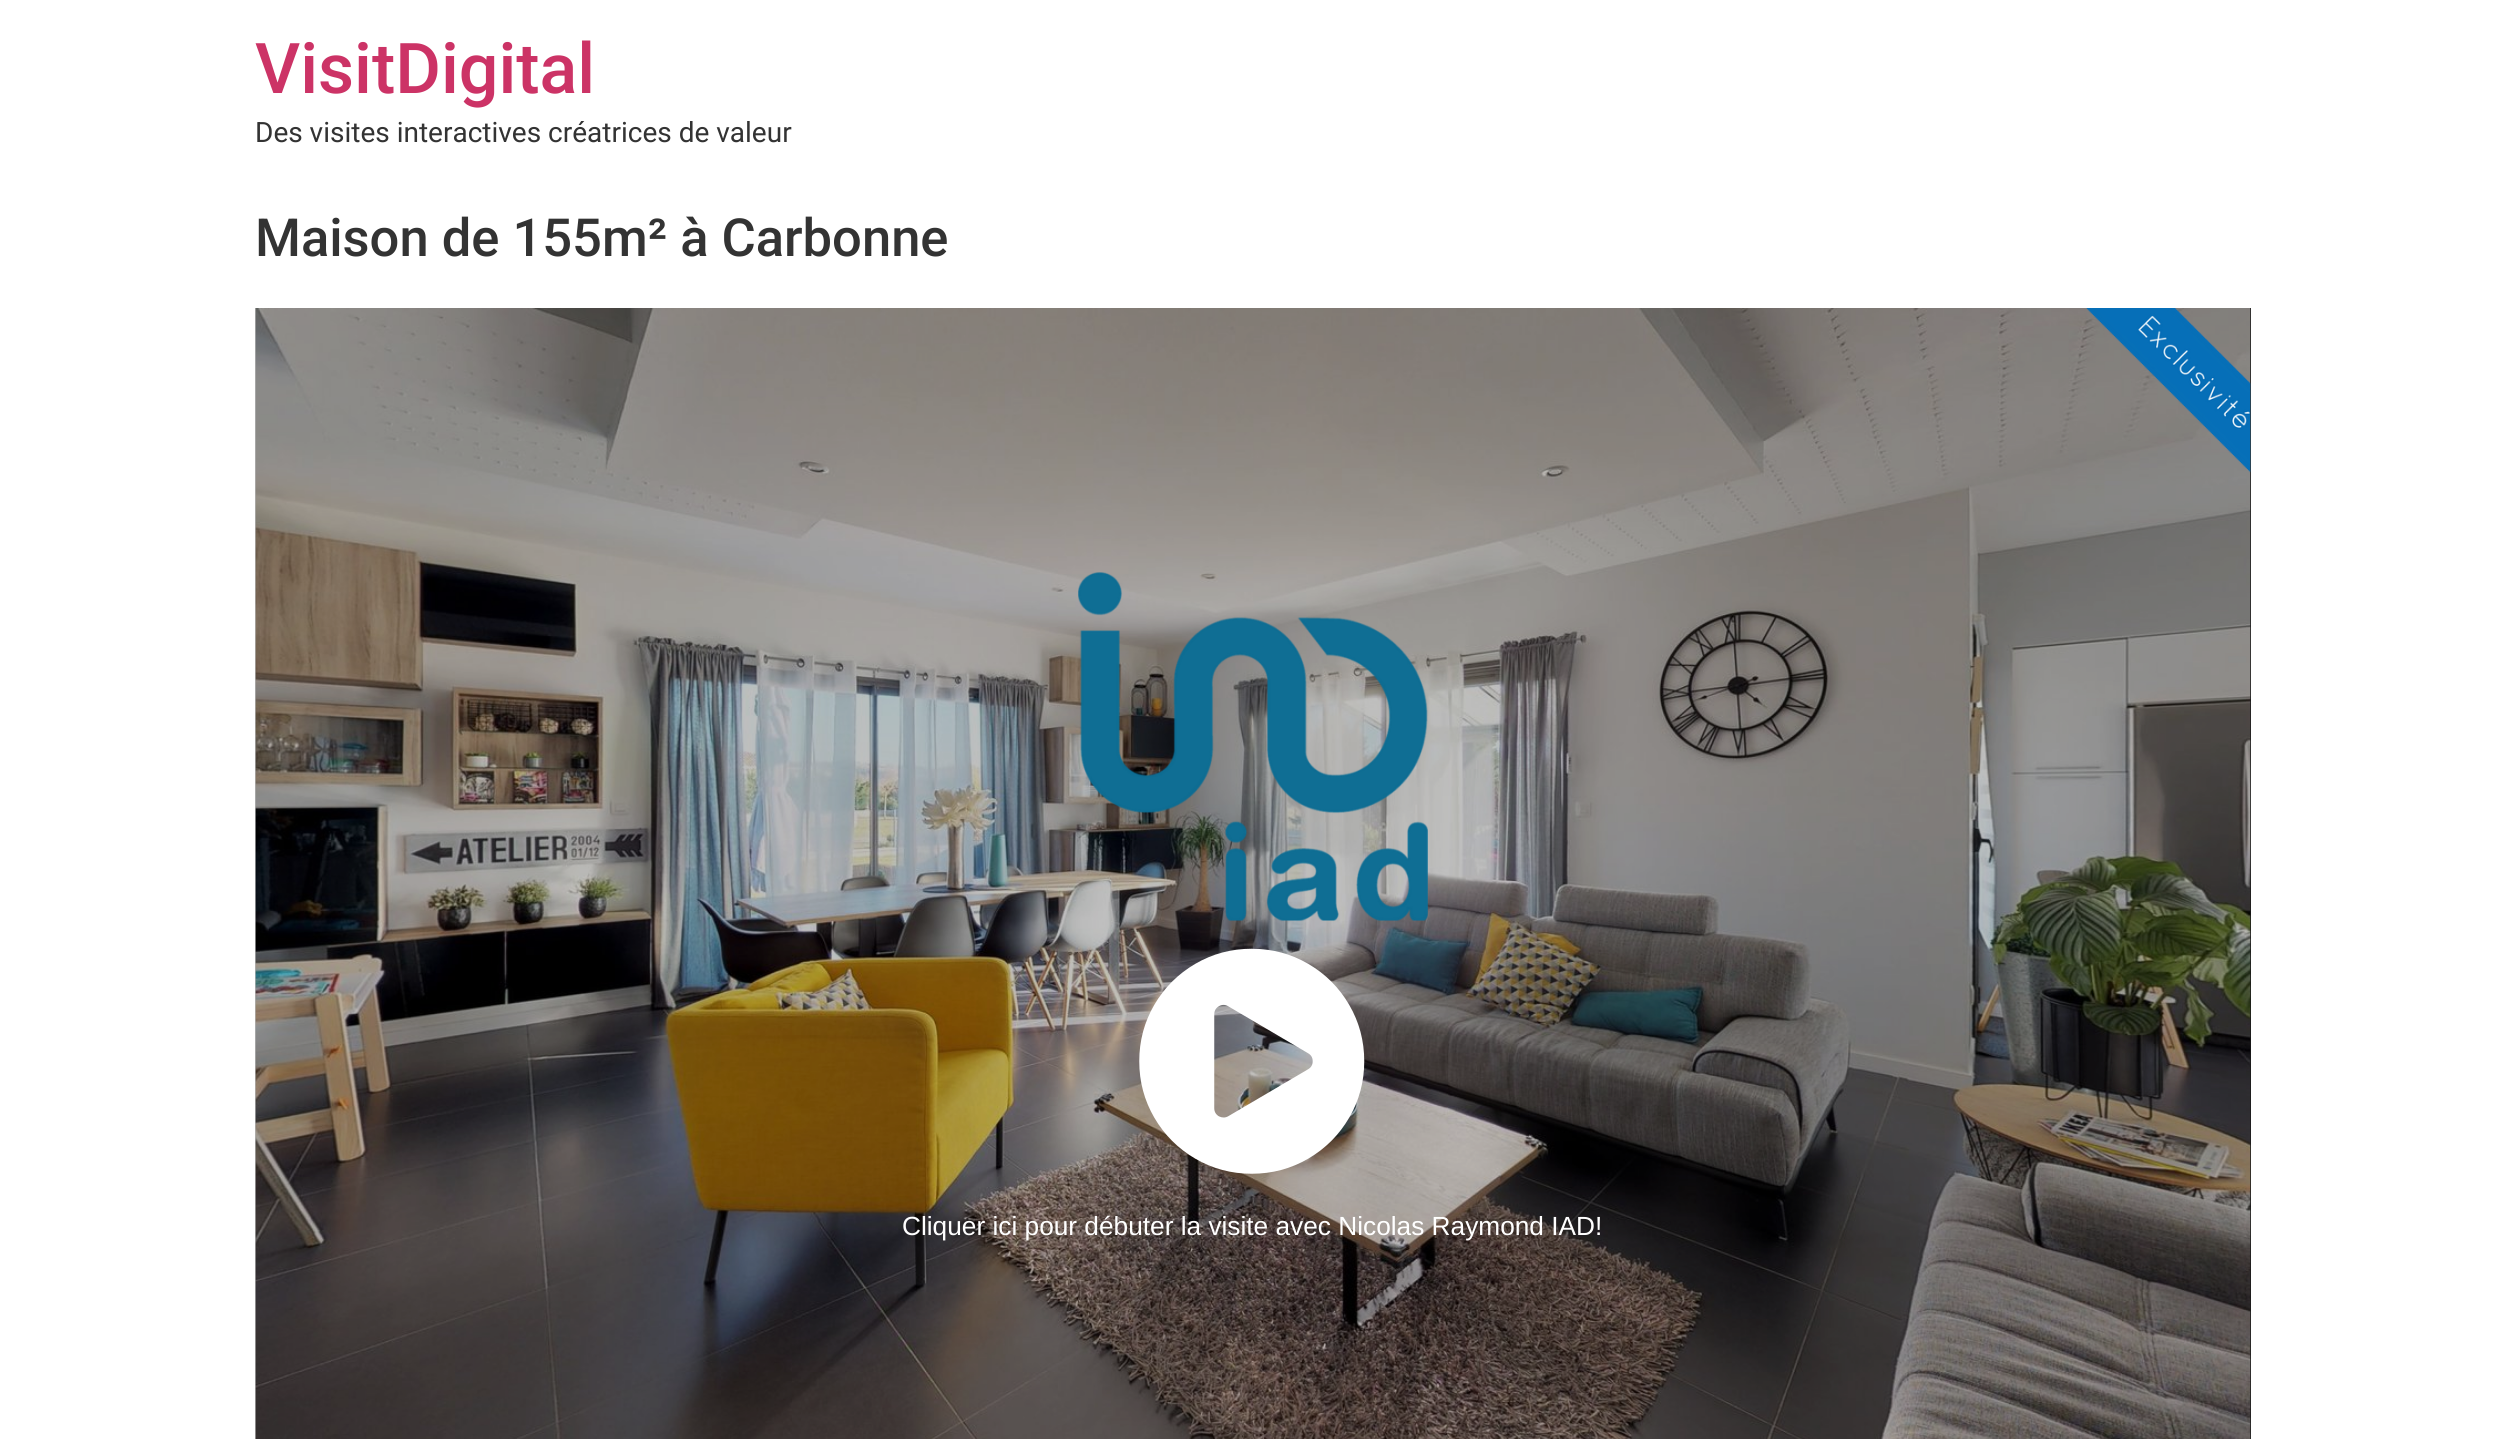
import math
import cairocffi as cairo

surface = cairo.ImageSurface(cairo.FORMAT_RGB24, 2503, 1439)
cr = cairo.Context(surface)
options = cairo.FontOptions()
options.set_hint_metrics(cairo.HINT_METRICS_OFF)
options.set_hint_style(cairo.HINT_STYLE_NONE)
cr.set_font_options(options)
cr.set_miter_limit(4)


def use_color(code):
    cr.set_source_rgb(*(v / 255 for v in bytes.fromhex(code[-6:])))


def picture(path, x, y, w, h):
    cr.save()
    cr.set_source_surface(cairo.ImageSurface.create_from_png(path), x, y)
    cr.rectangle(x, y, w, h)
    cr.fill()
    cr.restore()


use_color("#ffffff")
cr.paint()
cr.select_font_face("Roboto Medium")
cr.set_font_size(70)
use_color("#cc3366")
cr.move_to(255, 93)
cr.show_text("VisitDigital")
cr.select_font_face("Roboto")
cr.set_font_size(28)
use_color("#333333")
cr.move_to(255, 142)
cr.show_text("Des visites interactives créatrices de valeur")
cr.select_font_face("Roboto Medium")
cr.set_font_size(52.5)
cr.move_to(255, 256)
cr.show_text("Maison de 155m² à Carbonne")
use_color("#a0a0a0")
cr.rectangle(255, 308, 1, 1131)
cr.fill()
use_color("#191919")
cr.rectangle(2250, 308, 1, 1131)
cr.fill()
picture("img2.png", 255, 308, 1996, 1131)
picture("img1.png", 2086, 308, 165, 165)
picture("img3.png", 1078, 572, 350, 349)
picture("img4.png", 1139, 948, 226, 226)
cr.select_font_face("Liberation Sans")
cr.set_font_size(26.25)
use_color("#ffffff")
cr.move_to(902, 1235)
cr.show_text("Cliquer ici pour débuter la visite avec Nicolas Raymond IAD!")
surface.write_to_png("result.png")
